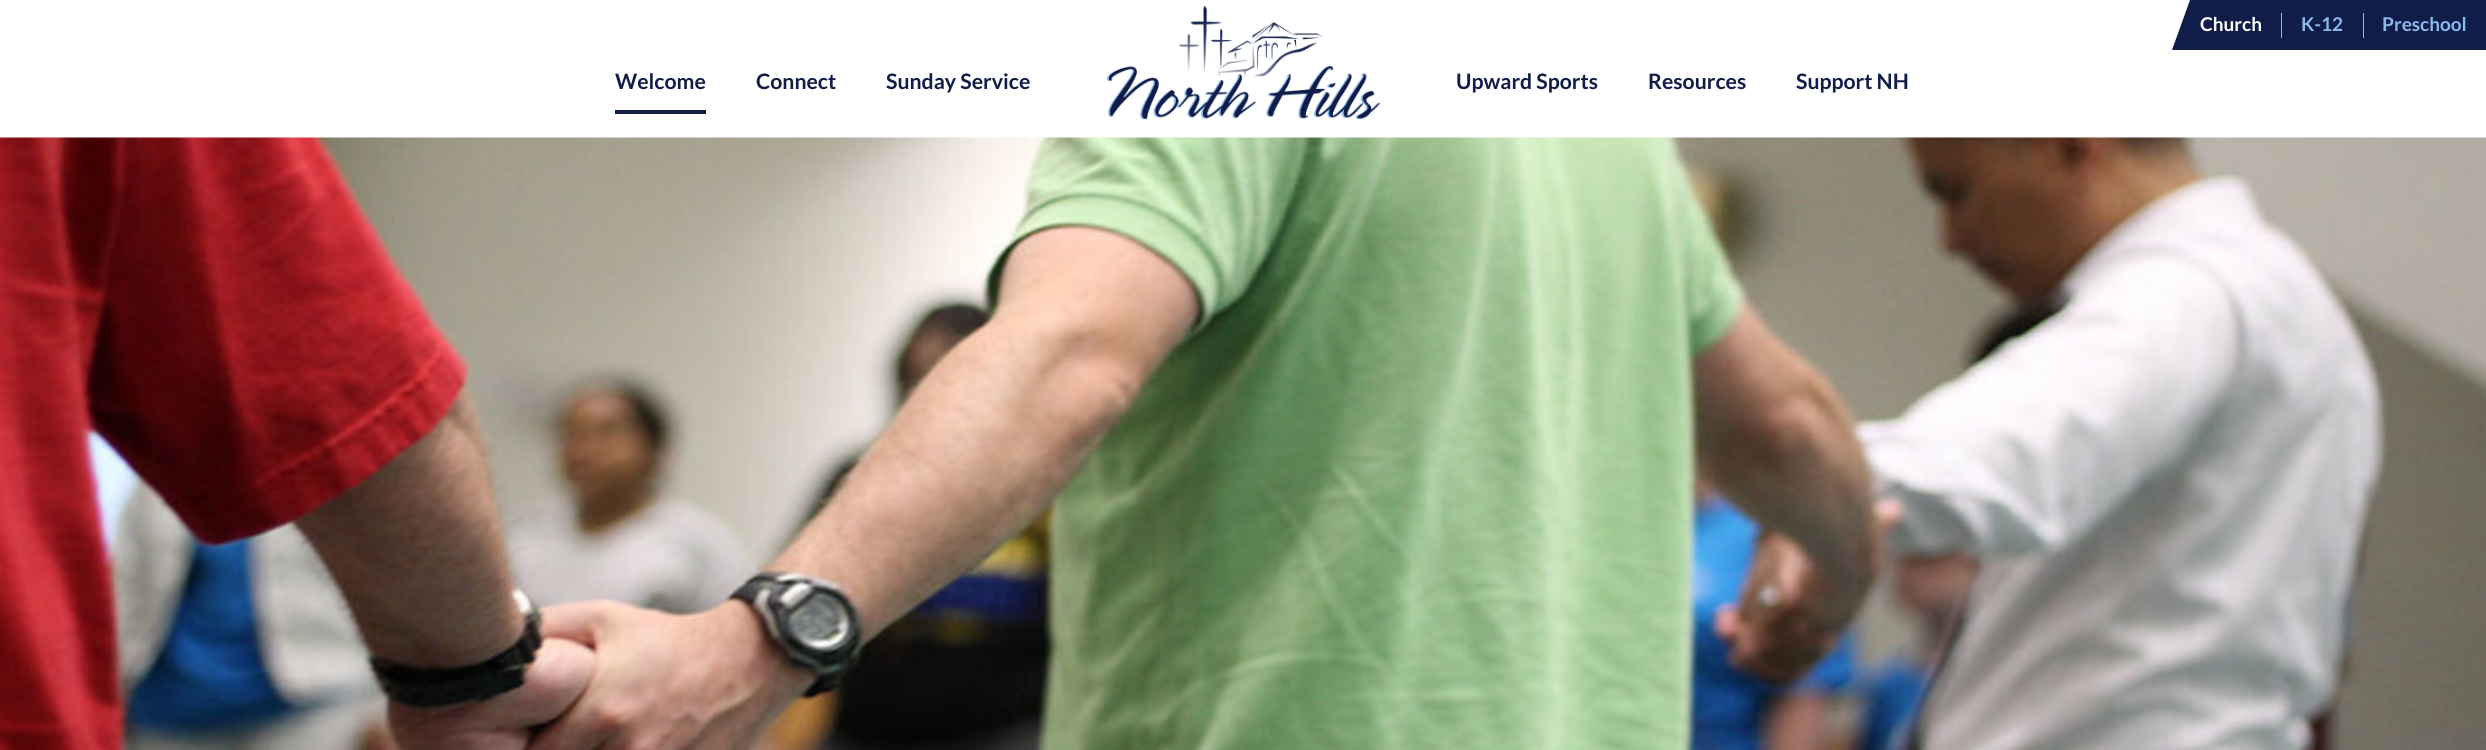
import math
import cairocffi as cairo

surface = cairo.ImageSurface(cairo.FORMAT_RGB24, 2486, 750)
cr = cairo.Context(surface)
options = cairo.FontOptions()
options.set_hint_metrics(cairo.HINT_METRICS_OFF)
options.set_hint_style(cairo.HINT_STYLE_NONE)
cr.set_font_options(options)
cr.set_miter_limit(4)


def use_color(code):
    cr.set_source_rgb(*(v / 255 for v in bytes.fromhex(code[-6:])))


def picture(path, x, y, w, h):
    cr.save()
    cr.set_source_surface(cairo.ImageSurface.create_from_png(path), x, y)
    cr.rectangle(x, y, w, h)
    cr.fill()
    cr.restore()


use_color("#ffffff")
cr.paint()
use_color("#101d49")
cr.new_path()
cr.move_to(2190, 0)
cr.line_to(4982, 0)
cr.line_to(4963, 50)
cr.line_to(2172, 50)
cr.close_path()
cr.fill()
use_color("#89b8ea")
cr.rectangle(2281, 13, 1, 25)
cr.fill()
cr.select_font_face("Lato", cairo.FONT_SLANT_NORMAL, cairo.FONT_WEIGHT_BOLD)
cr.set_font_size(19)
use_color("#ffffff")
cr.move_to(2200, 31)
cr.show_text("Church")
use_color("#89b8ea")
cr.rectangle(2363, 13, 1, 25)
cr.fill()
cr.move_to(2301, 31)
cr.show_text("K-12")
cr.move_to(2382, 31)
cr.show_text("Preschool")
picture("img1.png", 1106, 6, 274, 114)
cr.set_font_size(21.25)
use_color("#101d49")
cr.move_to(615, 89)
cr.show_text("Welcome")
cr.rectangle(615, 110, 91, 4)
cr.fill()
cr.move_to(756, 89)
cr.show_text("Connect")
cr.move_to(886, 89)
cr.show_text("Sunday Service")
cr.move_to(1456, 89)
cr.show_text("Upward Sports")
cr.move_to(1648, 89)
cr.show_text("Resources")
cr.move_to(1796, 89)
cr.show_text("Support NH")
picture("img2.png", 0, 137, 2486, 613)
surface.write_to_png("result.png")
